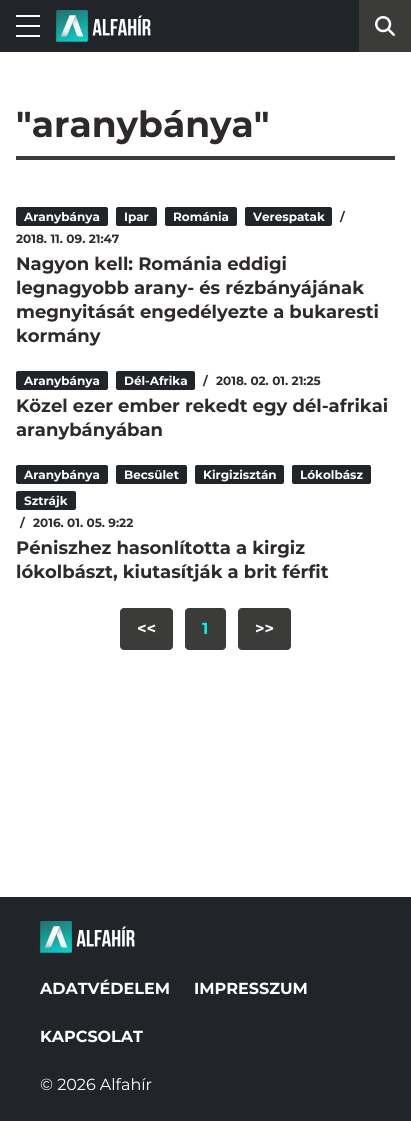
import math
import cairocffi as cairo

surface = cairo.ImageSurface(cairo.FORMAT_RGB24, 411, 1121)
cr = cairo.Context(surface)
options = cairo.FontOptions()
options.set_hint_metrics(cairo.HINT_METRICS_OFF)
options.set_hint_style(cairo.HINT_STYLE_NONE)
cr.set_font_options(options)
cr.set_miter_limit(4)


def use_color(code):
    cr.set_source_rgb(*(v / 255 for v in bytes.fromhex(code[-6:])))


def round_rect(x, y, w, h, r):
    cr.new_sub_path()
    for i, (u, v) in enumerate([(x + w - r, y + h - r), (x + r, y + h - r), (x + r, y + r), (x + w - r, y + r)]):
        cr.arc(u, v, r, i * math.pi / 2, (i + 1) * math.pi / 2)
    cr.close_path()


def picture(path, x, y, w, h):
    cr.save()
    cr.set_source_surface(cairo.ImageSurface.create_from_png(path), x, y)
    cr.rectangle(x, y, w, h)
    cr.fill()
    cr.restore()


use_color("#ffffff")
cr.paint()
use_color("#212529")
cr.rectangle(0, 0, 359, 52)
cr.fill()
use_color("#ffffff")
cr.rectangle(16, 15, 24, 2)
cr.fill()
cr.rectangle(16, 25, 24, 2)
cr.fill()
cr.rectangle(16, 35, 24, 2)
cr.fill()
picture("img1.png", 56, 10, 95, 32)
use_color("#3b3b3a")
cr.rectangle(359, 0, 52, 52)
cr.fill()
picture("img2.png", 375, 16, 20, 20)
cr.rectangle(16, 156, 379, 4)
cr.fill()
cr.select_font_face("Montserrat", cairo.FONT_SLANT_NORMAL, cairo.FONT_WEIGHT_BOLD)
cr.set_font_size(36)
use_color("#2e292a")
cr.move_to(16, 137)
cr.show_text("\"aranybánya\"")
use_color("#212529")
round_rect(16, 207, 92, 19, 2)
cr.fill()
cr.set_font_size(12)
use_color("#ffffff")
cr.move_to(24, 221)
cr.show_text("Aranybánya")
use_color("#212529")
round_rect(116, 207, 41, 19, 2)
cr.fill()
use_color("#ffffff")
cr.move_to(124, 221)
cr.show_text("Ipar")
use_color("#212529")
round_rect(165, 207, 72, 19, 2)
cr.fill()
use_color("#ffffff")
cr.move_to(173, 221)
cr.show_text("Románia")
use_color("#212529")
round_rect(245, 207, 87, 19, 2)
cr.fill()
use_color("#ffffff")
cr.move_to(253, 221)
cr.show_text("Verespatak")
use_color("#2e292a")
cr.move_to(340, 221)
cr.show_text("/")
cr.move_to(16, 243)
cr.show_text("2018. 11. 09. 21:47")
cr.set_font_size(18)
cr.move_to(16, 270)
cr.show_text("Nagyon kell: Románia eddigi")
cr.move_to(16, 294)
cr.show_text("legnagyobb arany- és rézbányájának")
cr.move_to(16, 318)
cr.show_text("megnyitását engedélyezte a bukaresti")
cr.move_to(16, 342)
cr.show_text("kormány")
use_color("#212529")
round_rect(16, 371, 92, 19, 2)
cr.fill()
cr.set_font_size(12)
use_color("#ffffff")
cr.move_to(24, 385)
cr.show_text("Aranybánya")
use_color("#212529")
round_rect(116, 371, 79, 19, 2)
cr.fill()
use_color("#ffffff")
cr.move_to(124, 385)
cr.show_text("Dél-Afrika")
use_color("#2e292a")
cr.move_to(203, 385)
cr.show_text("/")
cr.move_to(216, 385)
cr.show_text("2018. 02. 01. 21:25")
cr.set_font_size(18)
cr.move_to(16, 412)
cr.show_text("Közel ezer ember rekedt egy dél-afrikai")
cr.move_to(16, 436)
cr.show_text("aranybányában")
use_color("#212529")
round_rect(16, 465, 92, 19, 2)
cr.fill()
cr.set_font_size(12)
use_color("#ffffff")
cr.move_to(24, 479)
cr.show_text("Aranybánya")
use_color("#212529")
round_rect(116, 465, 71, 19, 2)
cr.fill()
use_color("#ffffff")
cr.move_to(124, 479)
cr.show_text("Becsület")
use_color("#212529")
round_rect(195, 465, 89, 19, 2)
cr.fill()
use_color("#ffffff")
cr.move_to(203, 479)
cr.show_text("Kirgizisztán")
use_color("#212529")
round_rect(292, 465, 79, 19, 2)
cr.fill()
use_color("#ffffff")
cr.move_to(300, 479)
cr.show_text("Lókolbász")
use_color("#212529")
round_rect(16, 491, 60, 19, 2)
cr.fill()
use_color("#ffffff")
cr.move_to(24, 505)
cr.show_text("Sztrájk")
use_color("#2e292a")
cr.move_to(20, 527)
cr.show_text("/")
cr.move_to(33, 527)
cr.show_text("2016. 01. 05. 9:22")
cr.set_font_size(18)
cr.move_to(16, 554)
cr.show_text("Péniszhez hasonlította a kirgiz")
cr.move_to(16, 578)
cr.show_text("lókolbászt, kiutasítják a brit férfit")
use_color("#3b3b3a")
round_rect(120.5, 608.5, 52, 41, 3.5)
cr.fill_preserve()
cr.set_line_width(1)
cr.stroke()
cr.set_font_size(16)
use_color("#ffffff")
cr.move_to(137, 634)
cr.show_text("<<")
use_color("#3b3b3a")
round_rect(185.5, 608.5, 40, 41, 3.5)
cr.fill_preserve()
cr.stroke()
use_color("#00f0e8")
cr.move_to(202, 634)
cr.show_text("1")
use_color("#3b3b3a")
round_rect(238.5, 608.5, 52, 41, 3.5)
cr.fill_preserve()
cr.stroke()
use_color("#ffffff")
cr.move_to(255, 634)
cr.show_text(">>")
use_color("#212529")
cr.rectangle(0, 897, 411, 224)
cr.fill()
picture("img3.png", 40, 921, 95, 32)
use_color("#ffffff")
cr.move_to(40, 994)
cr.show_text("ADATVÉDELEM")
cr.move_to(194, 994)
cr.show_text("IMPRESSZUM")
cr.move_to(40, 1042)
cr.show_text("KAPCSOLAT")
cr.select_font_face("Montserrat")
cr.move_to(40, 1090)
cr.show_text("© 2026 Alfahír")
surface.write_to_png("result.png")
